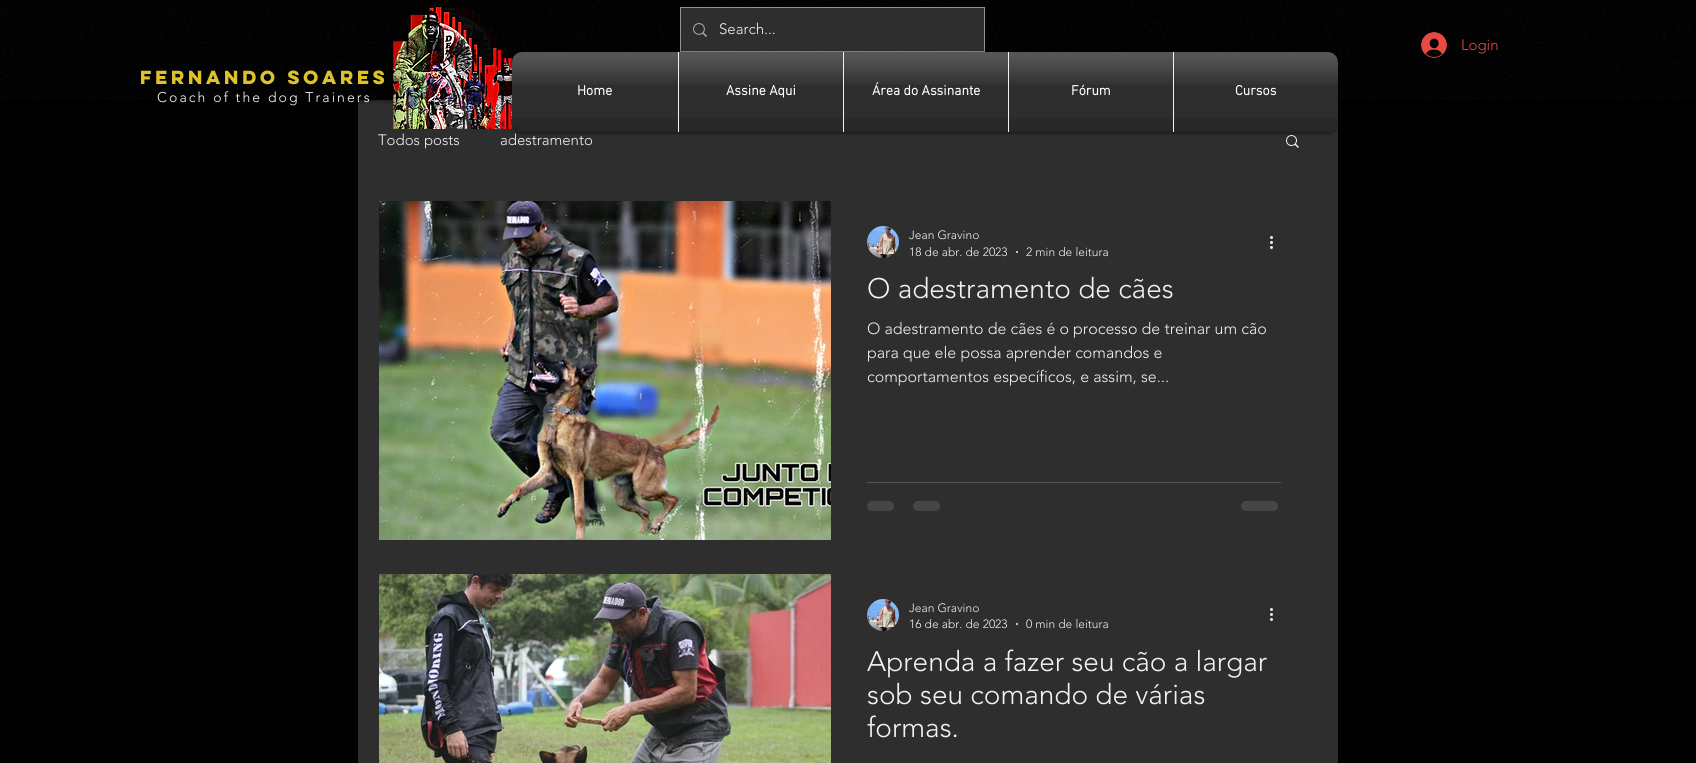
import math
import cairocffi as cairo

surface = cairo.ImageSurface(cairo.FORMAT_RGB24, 1696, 763)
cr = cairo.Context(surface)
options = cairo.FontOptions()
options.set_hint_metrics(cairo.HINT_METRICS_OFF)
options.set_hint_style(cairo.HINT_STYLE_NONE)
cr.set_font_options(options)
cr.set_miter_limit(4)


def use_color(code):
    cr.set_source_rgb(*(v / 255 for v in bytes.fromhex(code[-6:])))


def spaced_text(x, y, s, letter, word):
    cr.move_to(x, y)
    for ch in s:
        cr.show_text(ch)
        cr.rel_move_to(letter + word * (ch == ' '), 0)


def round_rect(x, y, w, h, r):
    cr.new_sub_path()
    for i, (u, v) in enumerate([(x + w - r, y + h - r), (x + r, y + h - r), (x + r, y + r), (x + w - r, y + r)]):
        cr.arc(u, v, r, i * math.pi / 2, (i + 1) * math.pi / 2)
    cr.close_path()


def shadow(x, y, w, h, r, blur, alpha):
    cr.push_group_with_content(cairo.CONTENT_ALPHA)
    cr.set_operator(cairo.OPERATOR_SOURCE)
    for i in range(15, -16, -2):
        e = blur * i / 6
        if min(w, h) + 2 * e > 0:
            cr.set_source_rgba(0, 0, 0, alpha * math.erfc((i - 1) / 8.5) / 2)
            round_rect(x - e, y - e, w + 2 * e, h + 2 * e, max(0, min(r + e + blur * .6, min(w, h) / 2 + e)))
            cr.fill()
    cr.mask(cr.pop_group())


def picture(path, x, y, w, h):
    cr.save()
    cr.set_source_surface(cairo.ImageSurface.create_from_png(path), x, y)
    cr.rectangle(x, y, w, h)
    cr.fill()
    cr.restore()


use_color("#000000")
cr.paint()
use_color("#2f2e2e")
cr.rectangle(358, 100, 980, 663)
cr.fill()
cr.save()
cr.rectangle(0, 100, 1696, 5)
cr.clip()
use_color("#000000")
shadow(0, 0, 1696, 100, 0, 2.5, 0.7)
cr.restore()
picture("img1.png", 0, 0, 1696, 100)
picture("img2.png", 393, 7, 119, 122)
cr.rectangle(680.5, 7.5, 304, 44)
cr.set_source_rgba(0.949, 0.949, 0.949, 0.6)
cr.set_line_width(1)
cr.stroke()
use_color("#2f2e2e")
cr.rectangle(681, 8, 303, 43)
cr.fill()
picture("img3.png", 693, 23, 14, 14)
cr.select_font_face("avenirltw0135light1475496 Light")
cr.set_font_size(15)
use_color("#f2f2f2")
cr.move_to(719, 34)
cr.show_text("Search...")
picture("img4.png", 1421, 32, 26, 26)
use_color("#e84a43")
cr.move_to(1461, 50)
cr.show_text("Login")
cr.select_font_face("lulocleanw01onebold", cairo.FONT_SLANT_NORMAL, cairo.FONT_WEIGHT_BOLD)
cr.set_font_size(17)
use_color("#dec328")
cr.move_to(140, 84)
cr.show_text("FERNANDO SOARES")
cr.select_font_face("avenirltw0135light1475496 Light")
cr.set_font_size(14)
use_color("#ffffff")
spaced_text(157, 102, "Coach of the dog Trainers", 2.1, 0)
picture("img14.png", 1286, 135, 13, 13)
use_color("#000000")
shadow(512, 53, 826, 80, 10, 2, 0.6)
picture("img5.png", 512, 52, 826, 10)
picture("img6.png", 512, 122, 826, 10)
use_color("#2f2e2e")
cr.new_path()
cr.move_to(522, 52)
cr.line_to(678, 52)
cr.line_to(678, 132)
cr.line_to(522, 132)
cr.curve_to(516.5, 132, 512, 127.5, 512, 122)
cr.line_to(512, 62)
cr.curve_to(512, 56.5, 516.5, 52, 522, 52)
cr.close_path()
cr.fill()
picture("img7.png", 512, 52, 166, 33)
picture("img8.png", 512, 117, 166, 15)
cr.select_font_face("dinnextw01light", cairo.FONT_SLANT_NORMAL, cairo.FONT_WEIGHT_BOLD)
use_color("#ffffff")
cr.move_to(577, 95)
cr.show_text("Home")
use_color("#2f2e2e")
cr.rectangle(679, 52, 164, 80)
cr.fill()
use_color("#f2f2f2")
cr.rectangle(678, 52, 1, 80)
cr.fill()
picture("img9.png", 679, 52, 164, 33)
picture("img10.png", 679, 117, 164, 15)
use_color("#ffffff")
cr.move_to(726, 95)
cr.show_text("Assine Aqui")
use_color("#2f2e2e")
cr.rectangle(844, 52, 164, 80)
cr.fill()
use_color("#f2f2f2")
cr.rectangle(843, 52, 1, 80)
cr.fill()
use_color("#ffffff")
cr.move_to(872, 95)
cr.show_text("Área do Assinante")
picture("img11.png", 844, 52, 164, 33)
picture("img10.png", 844, 117, 164, 15)
use_color("#2f2e2e")
cr.rectangle(1009, 52, 164, 80)
cr.fill()
use_color("#f2f2f2")
cr.rectangle(1008, 52, 1, 80)
cr.fill()
picture("img9.png", 1009, 52, 164, 33)
picture("img10.png", 1009, 117, 164, 15)
use_color("#ffffff")
cr.move_to(1071, 95)
cr.show_text("Fórum")
use_color("#2f2e2e")
cr.new_path()
cr.move_to(1173, 52)
cr.line_to(1328, 52)
cr.curve_to(1333.5, 52, 1338, 56.5, 1338, 62)
cr.line_to(1338, 122)
cr.curve_to(1338, 127.5, 1333.5, 132, 1328, 132)
cr.line_to(1173, 132)
cr.close_path()
cr.fill()
use_color("#f2f2f2")
cr.rectangle(1173, 52, 1, 80)
cr.fill()
picture("img12.png", 1174, 52, 164, 33)
picture("img13.png", 1174, 117, 164, 15)
use_color("#ffffff")
cr.move_to(1235, 95)
cr.show_text("Cursos")
cr.select_font_face("avenirltw0135light1475496 Light")
cr.set_font_size(15)
use_color("#f2f2f2")
cr.move_to(378, 145)
cr.show_text("Todos posts")
cr.move_to(500, 145)
cr.show_text("adestramento")
picture("img15.png", 379, 201, 452, 339)
picture("img16.png", 867, 226, 32, 32)
cr.set_font_size(12)
cr.move_to(909, 239)
cr.show_text("Jean Gravino")
cr.move_to(909, 256)
cr.show_text("18 de abr. de 2023")
cr.new_path()
cr.arc(1017, 252, 1, 0, 2 * math.pi)
cr.fill()
cr.move_to(1026, 256)
cr.show_text("2 min de leitura")
picture("img17.png", 1270, 236, 3, 13)
cr.set_font_size(28)
cr.move_to(867, 298)
cr.show_text("O adestramento de cães")
cr.set_font_size(16)
cr.move_to(867, 334)
cr.show_text("O adestramento de cães é o processo de treinar um cão")
cr.move_to(867, 358)
cr.show_text("para que ele possa aprender comandos e")
cr.move_to(867, 382)
cr.show_text("comportamentos específicos, e assim, se...")
use_color("#565555")
cr.rectangle(867, 482, 414, 1)
cr.fill()
use_color("#464646")
round_rect(867, 501, 27, 10, 5)
cr.fill()
round_rect(913, 501, 27, 10, 5)
cr.fill()
round_rect(1241, 501, 37, 10, 5)
cr.fill()
picture("img18.png", 379, 574, 452, 189)
picture("img16.png", 867, 599, 32, 32)
cr.set_font_size(12)
use_color("#f2f2f2")
cr.move_to(909, 612)
cr.show_text("Jean Gravino")
cr.move_to(909, 628)
cr.show_text("16 de abr. de 2023")
cr.new_path()
cr.arc(1017, 624, 1, 0, 2 * math.pi)
cr.fill()
cr.move_to(1026, 628)
cr.show_text("0 min de leitura")
picture("img17.png", 1270, 608, 3, 13)
cr.set_font_size(28)
cr.move_to(867, 671)
cr.show_text("Aprenda a fazer seu cão a largar")
cr.move_to(867, 704)
cr.show_text("sob seu comando de várias")
cr.move_to(867, 737)
cr.show_text("formas.")
surface.write_to_png("result.png")
